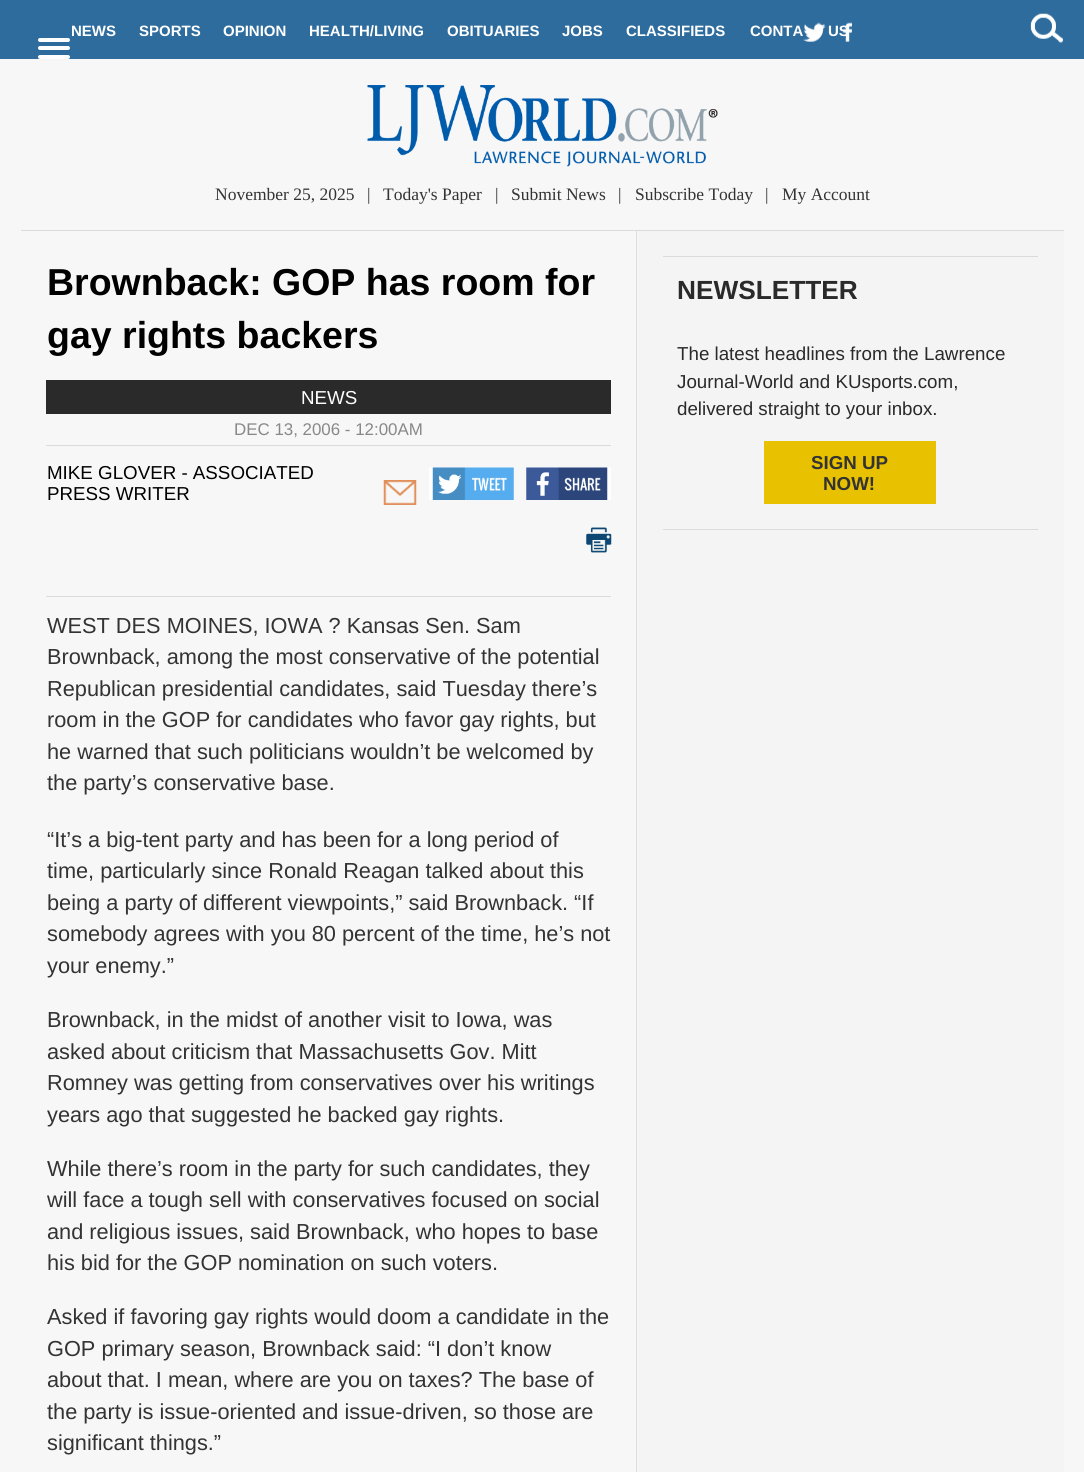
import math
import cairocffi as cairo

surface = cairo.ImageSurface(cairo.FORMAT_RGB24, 1084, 1472)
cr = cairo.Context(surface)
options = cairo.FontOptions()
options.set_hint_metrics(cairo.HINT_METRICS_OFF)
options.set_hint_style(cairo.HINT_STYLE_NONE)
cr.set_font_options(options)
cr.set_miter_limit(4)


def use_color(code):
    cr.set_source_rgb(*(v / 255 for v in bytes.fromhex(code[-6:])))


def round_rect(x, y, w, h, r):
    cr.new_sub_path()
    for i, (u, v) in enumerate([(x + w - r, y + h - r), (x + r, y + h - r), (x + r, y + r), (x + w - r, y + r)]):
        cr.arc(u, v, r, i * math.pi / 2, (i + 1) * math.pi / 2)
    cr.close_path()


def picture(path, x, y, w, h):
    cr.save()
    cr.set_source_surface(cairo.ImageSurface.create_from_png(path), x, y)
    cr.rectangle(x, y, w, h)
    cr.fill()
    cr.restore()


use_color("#f7f7f7")
cr.paint()
use_color("#2e6c9d")
cr.rectangle(0, 0, 1084, 59)
cr.fill()
cr.select_font_face("Liberation Sans", cairo.FONT_SLANT_NORMAL, cairo.FONT_WEIGHT_BOLD)
cr.set_font_size(15)
use_color("#ffffff")
cr.move_to(71, 36)
cr.show_text("NEWS")
cr.move_to(139, 36)
cr.show_text("SPORTS")
cr.move_to(223, 36)
cr.show_text("OPINION")
cr.move_to(309, 36)
cr.show_text("HEALTH/LIVING")
cr.move_to(447, 36)
cr.show_text("OBITUARIES")
cr.move_to(562, 36)
cr.show_text("JOBS")
cr.move_to(626, 36)
cr.show_text("CLASSIFIEDS")
cr.move_to(750, 36)
cr.show_text("CONTA")
cr.move_to(828, 36)
cr.show_text("US")
picture("img1.png", 803, 22, 23, 20)
picture("img2.png", 843, 22, 9, 20)
picture("img3.png", 1030, 13, 33, 30)
round_rect(38, 38, 32, 4, 2)
cr.fill()
round_rect(38, 46, 32, 4, 2)
cr.fill()
round_rect(38, 55, 32, 4, 2)
cr.fill()
picture("img4.png", 367, 85, 351, 82)
cr.select_font_face("Liberation Serif")
cr.set_font_size(17.5)
use_color("#333333")
cr.move_to(215, 200)
cr.show_text("November 25, 2025")
cr.move_to(367, 200)
cr.show_text("|")
cr.move_to(383, 200)
cr.show_text("Today's Paper")
cr.move_to(495, 200)
cr.show_text("|")
cr.move_to(511, 200)
cr.show_text("Submit News")
cr.move_to(618, 200)
cr.show_text("|")
cr.move_to(635, 200)
cr.show_text("Subscribe Today")
cr.move_to(765, 200)
cr.show_text("|")
cr.move_to(782, 200)
cr.show_text("My Account")
use_color("#f4f4f4")
cr.rectangle(638, 231, 426, 1241)
cr.fill()
use_color("#dbdbdb")
cr.rectangle(21, 230, 1043, 1)
cr.fill()
cr.rectangle(636, 231, 1, 1241)
cr.fill()
cr.select_font_face("Liberation Sans", cairo.FONT_SLANT_NORMAL, cairo.FONT_WEIGHT_BOLD)
cr.set_font_size(37.5)
use_color("#000000")
cr.move_to(47, 295)
cr.show_text("Brownback: GOP has room for")
cr.move_to(47, 348)
cr.show_text("gay rights backers")
use_color("#2a2a2a")
cr.rectangle(46, 380, 565, 34)
cr.fill()
cr.select_font_face("Liberation Sans")
cr.set_font_size(18.75)
use_color("#ffffff")
cr.move_to(301, 404)
cr.show_text("NEWS")
cr.set_font_size(16.9)
use_color("#888888")
cr.move_to(234, 435)
cr.show_text("DEC 13, 2006 - 12:00AM")
use_color("#dbdbdb")
cr.rectangle(46, 445, 565, 1)
cr.fill()
cr.set_font_size(18.75)
use_color("#000000")
cr.move_to(47, 479)
cr.show_text("MIKE GLOVER - ASSOCIATED")
cr.move_to(47, 500)
cr.show_text("PRESS WRITER")
picture("img5.png", 429, 467, 85, 33)
picture("img6.png", 526, 467, 85, 33)
picture("img7.png", 383, 480, 34, 25)
picture("img8.png", 586, 527, 26, 26)
use_color("#dbdbdb")
cr.rectangle(46, 596, 565, 1)
cr.fill()
cr.set_font_size(21.75)
use_color("#333333")
cr.move_to(47, 633)
cr.show_text("WEST DES MOINES, IOWA ? Kansas Sen. Sam")
cr.move_to(47, 664)
cr.show_text("Brownback, among the most conservative of the potential")
cr.move_to(47, 696)
cr.show_text("Republican presidential candidates, said Tuesday there’s")
cr.move_to(47, 727)
cr.show_text("room in the GOP for candidates who favor gay rights, but")
cr.move_to(47, 759)
cr.show_text("he warned that such politicians wouldn’t be welcomed by")
cr.move_to(47, 790)
cr.show_text("the party’s conservative base.")
cr.move_to(47, 847)
cr.show_text("“It’s a big-tent party and has been for a long period of")
cr.move_to(47, 878)
cr.show_text("time, particularly since Ronald Reagan talked about this")
cr.move_to(47, 910)
cr.show_text("being a party of different viewpoints,” said Brownback. “If")
cr.move_to(47, 941)
cr.show_text("somebody agrees with you 80 percent of the time, he’s not")
cr.move_to(47, 973)
cr.show_text("your enemy.”")
cr.move_to(47, 1027)
cr.show_text("Brownback, in the midst of another visit to Iowa, was")
cr.move_to(47, 1059)
cr.show_text("asked about criticism that Massachusetts Gov. Mitt")
cr.move_to(47, 1090)
cr.show_text("Romney was getting from conservatives over his writings")
cr.move_to(47, 1122)
cr.show_text("years ago that suggested he backed gay rights.")
cr.move_to(47, 1176)
cr.show_text("While there’s room in the party for such candidates, they")
cr.move_to(47, 1207)
cr.show_text("will face a tough sell with conservatives focused on social")
cr.move_to(47, 1239)
cr.show_text("and religious issues, said Brownback, who hopes to base")
cr.move_to(47, 1270)
cr.show_text("his bid for the GOP nomination on such voters.")
cr.move_to(47, 1324)
cr.show_text("Asked if favoring gay rights would doom a candidate in the")
cr.move_to(47, 1356)
cr.show_text("GOP primary season, Brownback said: “I don’t know")
cr.move_to(47, 1387)
cr.show_text("about that. I mean, where are you on taxes? The base of")
cr.move_to(47, 1419)
cr.show_text("the party is issue-oriented and issue-driven, so those are")
cr.move_to(47, 1450)
cr.show_text("significant things.”")
use_color("#dbdbdb")
cr.rectangle(663, 256, 375, 1)
cr.fill()
cr.rectangle(663, 529, 375, 1)
cr.fill()
cr.select_font_face("Liberation Sans", cairo.FONT_SLANT_NORMAL, cairo.FONT_WEIGHT_BOLD)
cr.set_font_size(26.25)
use_color("#2a2a2a")
cr.move_to(677, 299)
cr.show_text("NEWSLETTER")
cr.select_font_face("Liberation Sans")
cr.set_font_size(18.75)
cr.move_to(677, 360)
cr.show_text("The latest headlines from the Lawrence")
cr.move_to(677, 388)
cr.show_text("Journal-World and KUsports.com,")
cr.move_to(677, 415)
cr.show_text("delivered straight to your inbox.")
use_color("#e8c200")
cr.rectangle(764, 441, 172, 63)
cr.fill()
cr.select_font_face("Liberation Sans", cairo.FONT_SLANT_NORMAL, cairo.FONT_WEIGHT_BOLD)
use_color("#333333")
cr.move_to(811, 469)
cr.show_text("SIGN UP")
cr.move_to(823, 490)
cr.show_text("NOW!")
surface.write_to_png("result.png")
